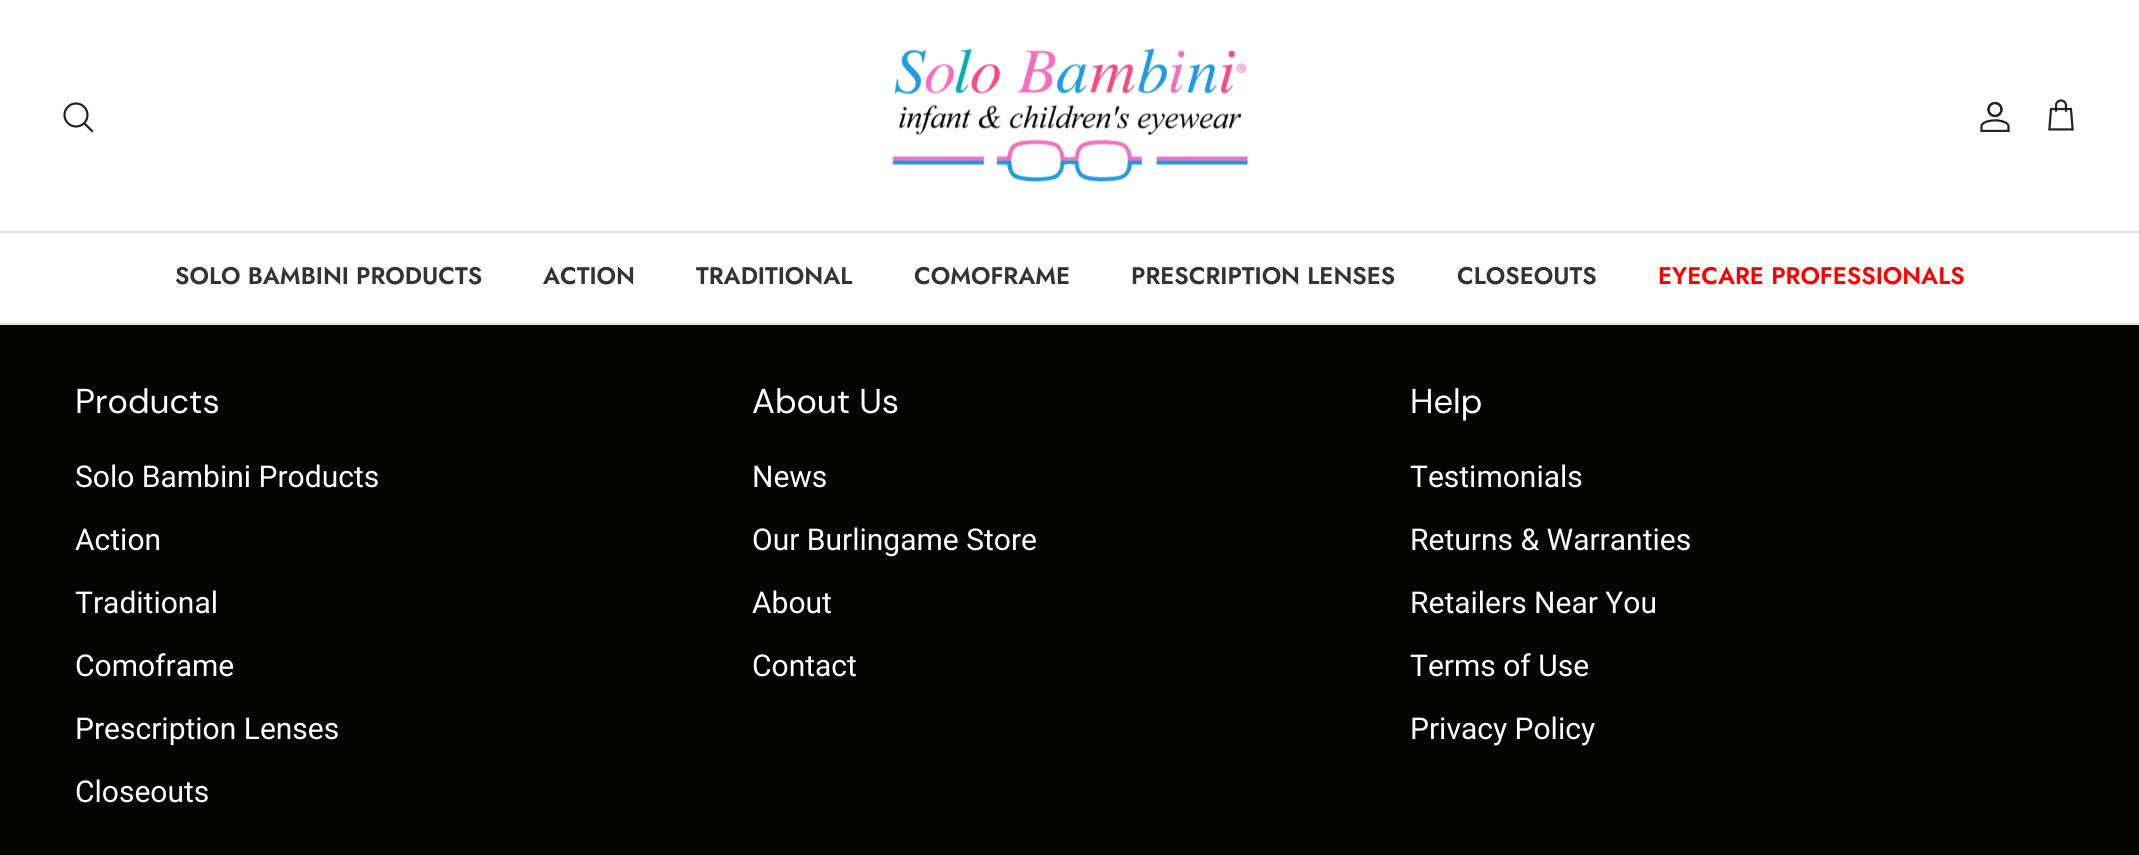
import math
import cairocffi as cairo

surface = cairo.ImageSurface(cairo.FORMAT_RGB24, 2139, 855)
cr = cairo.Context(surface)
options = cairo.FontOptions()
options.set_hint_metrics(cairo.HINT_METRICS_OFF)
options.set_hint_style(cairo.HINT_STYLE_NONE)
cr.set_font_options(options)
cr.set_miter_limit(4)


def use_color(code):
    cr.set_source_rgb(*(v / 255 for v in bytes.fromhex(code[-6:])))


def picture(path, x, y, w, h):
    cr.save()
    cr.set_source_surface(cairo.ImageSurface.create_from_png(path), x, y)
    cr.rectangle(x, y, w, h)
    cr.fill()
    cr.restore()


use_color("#040503")
cr.paint()
use_color("#ffffff")
cr.rectangle(0, 0, 2139, 231)
cr.fill()
use_color("#e2e2e2")
cr.rectangle(0, 231, 2139, 2)
cr.fill()
cr.arc(76, 115, 11.5, 0, 2 * math.pi)
use_color("#202223")
cr.set_line_width(2.2)
cr.stroke()
cr.new_path()
cr.move_to(85.5, 124.5)
cr.line_to(92, 131)
cr.set_line_cap(cairo.LINE_CAP_SQUARE)
cr.stroke()
picture("img1.png", 892, 48, 356, 134)
picture("img2.png", 1980, 101, 30, 31)
picture("img3.png", 2048, 99, 26, 32)
use_color("#e2e2e2")
cr.rectangle(0, 323, 2139, 2)
cr.fill()
use_color("#ffffff")
cr.rectangle(0, 233, 2139, 90)
cr.fill()
cr.select_font_face("Jost SemiBold")
cr.set_font_size(24)
use_color("#333333")
cr.move_to(175, 284)
cr.show_text("SOLO BAMBINI PRODUCTS")
cr.move_to(543, 284)
cr.show_text("ACTION")
cr.move_to(696, 284)
cr.show_text("TRADITIONAL")
cr.move_to(914, 284)
cr.show_text("COMOFRAME")
cr.move_to(1131, 284)
cr.show_text("PRESCRIPTION LENSES")
cr.move_to(1457, 284)
cr.show_text("CLOSEOUTS")
use_color("#ff0000")
cr.move_to(1658, 284)
cr.show_text("EYECARE PROFESSIONALS")
cr.select_font_face("DM Sans")
cr.set_font_size(34.5)
use_color("#ffffff")
cr.move_to(75, 413)
cr.show_text("Products")
cr.select_font_face("Roboto")
cr.set_font_size(30)
cr.move_to(75, 487)
cr.show_text("Solo Bambini Products")
cr.move_to(75, 550)
cr.show_text("Action")
cr.move_to(75, 613)
cr.show_text("Traditional")
cr.move_to(75, 676)
cr.show_text("Comoframe")
cr.move_to(75, 739)
cr.show_text("Prescription Lenses")
cr.move_to(75, 802)
cr.show_text("Closeouts")
cr.select_font_face("DM Sans")
cr.set_font_size(34.5)
cr.move_to(752, 413)
cr.show_text("About Us")
cr.select_font_face("Roboto")
cr.set_font_size(30)
cr.move_to(752, 487)
cr.show_text("News")
cr.move_to(752, 550)
cr.show_text("Our Burlingame Store")
cr.move_to(752, 613)
cr.show_text("About")
cr.move_to(752, 676)
cr.show_text("Contact")
cr.select_font_face("DM Sans")
cr.set_font_size(34.5)
cr.move_to(1410, 413)
cr.show_text("Help")
cr.select_font_face("Roboto")
cr.set_font_size(30)
cr.move_to(1410, 487)
cr.show_text("Testimonials")
cr.move_to(1410, 550)
cr.show_text("Returns & Warranties")
cr.move_to(1410, 613)
cr.show_text("Retailers Near You")
cr.move_to(1410, 676)
cr.show_text("Terms of Use")
cr.move_to(1410, 739)
cr.show_text("Privacy Policy")
surface.write_to_png("result.png")
